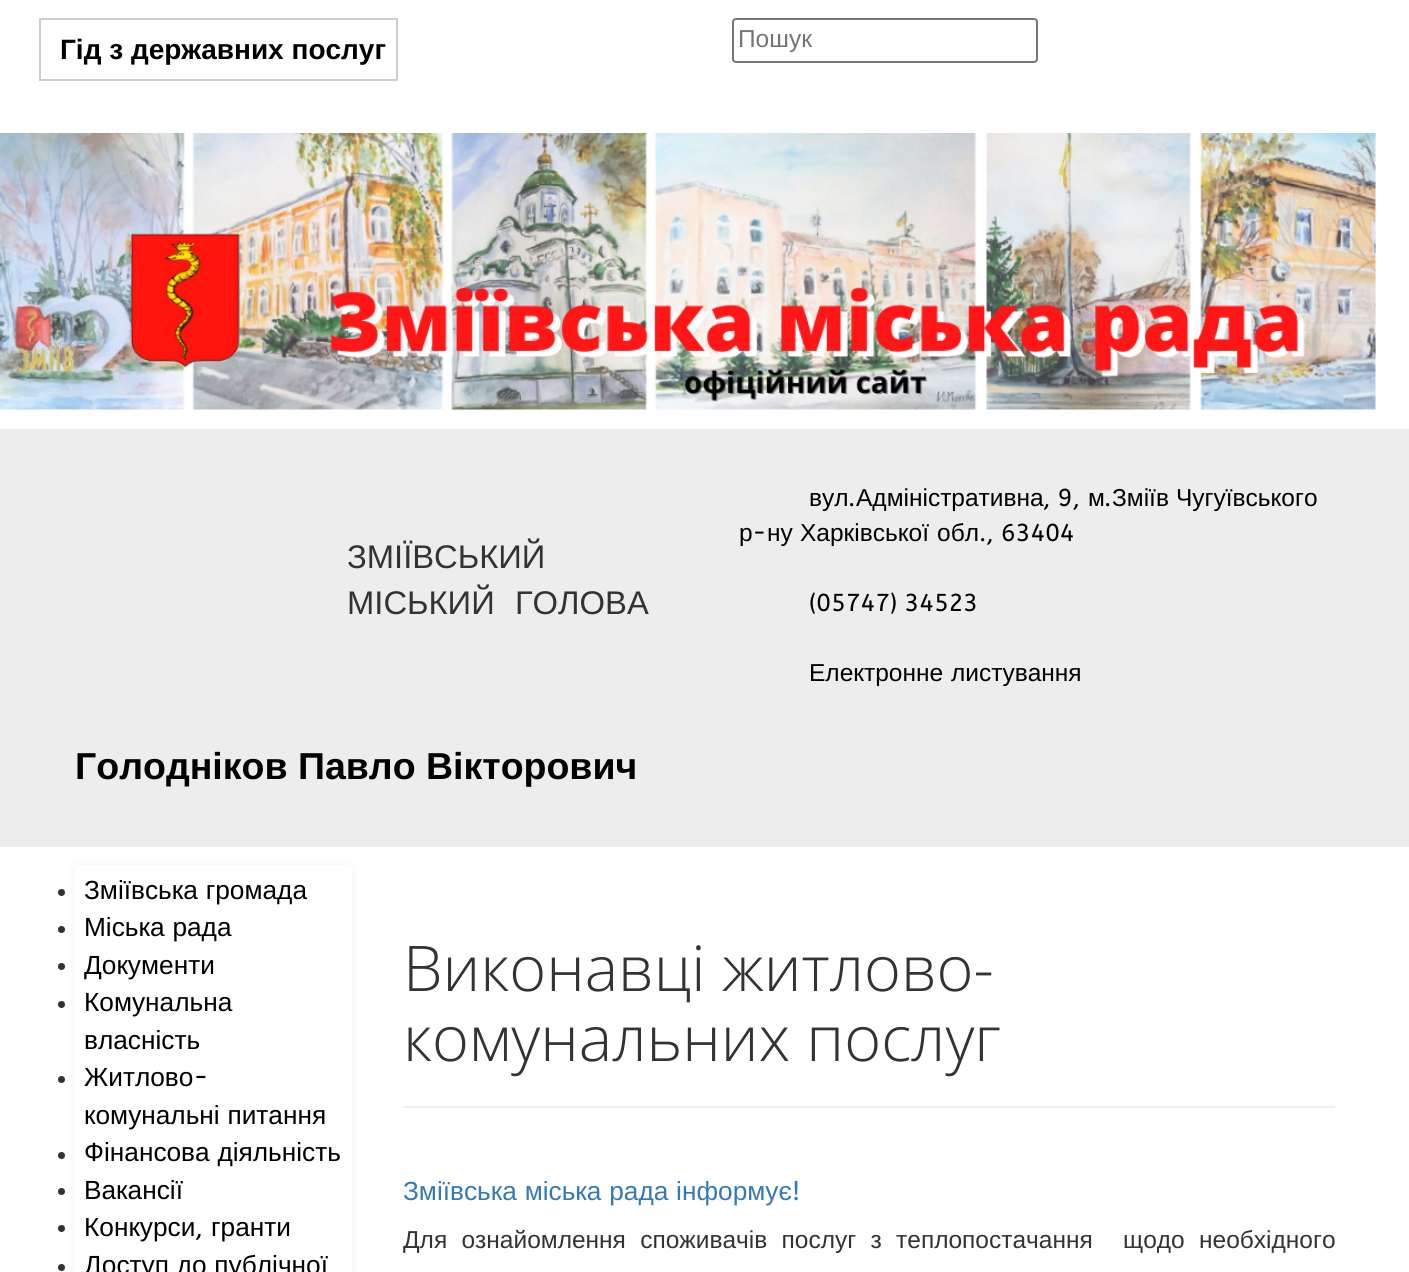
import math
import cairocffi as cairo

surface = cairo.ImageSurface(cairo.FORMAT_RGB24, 1409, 1272)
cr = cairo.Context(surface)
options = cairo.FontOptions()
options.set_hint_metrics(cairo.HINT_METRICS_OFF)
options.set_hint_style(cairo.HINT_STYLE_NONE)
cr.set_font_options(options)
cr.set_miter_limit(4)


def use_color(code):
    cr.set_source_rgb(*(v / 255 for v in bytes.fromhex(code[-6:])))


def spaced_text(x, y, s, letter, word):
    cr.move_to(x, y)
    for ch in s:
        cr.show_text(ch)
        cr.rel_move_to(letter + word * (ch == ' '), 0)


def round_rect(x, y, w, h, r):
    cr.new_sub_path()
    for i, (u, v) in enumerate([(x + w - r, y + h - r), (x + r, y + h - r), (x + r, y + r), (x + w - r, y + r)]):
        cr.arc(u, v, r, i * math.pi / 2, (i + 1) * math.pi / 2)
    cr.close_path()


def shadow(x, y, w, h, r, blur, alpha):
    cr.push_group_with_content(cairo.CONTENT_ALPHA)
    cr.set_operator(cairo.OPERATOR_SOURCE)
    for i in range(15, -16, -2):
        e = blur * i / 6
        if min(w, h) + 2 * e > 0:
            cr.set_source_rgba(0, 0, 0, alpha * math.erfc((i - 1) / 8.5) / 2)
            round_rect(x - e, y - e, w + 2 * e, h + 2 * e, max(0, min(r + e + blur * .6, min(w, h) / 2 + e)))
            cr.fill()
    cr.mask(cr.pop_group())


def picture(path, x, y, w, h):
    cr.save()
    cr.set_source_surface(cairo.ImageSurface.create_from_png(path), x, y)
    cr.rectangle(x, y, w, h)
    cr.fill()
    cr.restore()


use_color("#ffffff")
cr.paint()
use_color("#cfcfc9")
cr.rectangle(39, 18, 358, 2)
cr.fill()
cr.rectangle(396, 18, 2, 63)
cr.fill()
cr.rectangle(39, 79, 358, 2)
cr.fill()
cr.rectangle(39, 18, 2, 63)
cr.fill()
cr.select_font_face("Liberation Sans", cairo.FONT_SLANT_NORMAL, cairo.FONT_WEIGHT_BOLD)
cr.set_font_size(28)
use_color("#000000")
cr.move_to(60, 59)
cr.show_text("Гід з державних послуг")
round_rect(733, 19, 304, 43, 3)
use_color("#767676")
cr.stroke()
cr.select_font_face("Liberation Sans")
cr.set_font_size(24.5)
use_color("#757575")
cr.move_to(738, 47)
cr.show_text("Пошук")
picture("img1.png", 0, 133, 1376, 277)
use_color("#ededed")
cr.rectangle(0, 429, 1409, 418)
cr.fill()
cr.set_font_size(32.75)
use_color("#333333")
cr.move_to(347, 568)
cr.show_text("ЗМІЇВСЬКИЙ")
spaced_text(347, 614, "МІСЬКИЙ  ГОЛОВА", 0, 1)
cr.select_font_face("Liberation Sans", cairo.FONT_SLANT_NORMAL, cairo.FONT_WEIGHT_BOLD)
cr.set_font_size(37.5)
use_color("#000000")
cr.move_to(75, 779)
cr.show_text("Голодніков")
cr.move_to(298, 779)
cr.show_text("Павло")
cr.move_to(426, 779)
cr.show_text("Вікторович")
cr.select_font_face("Liberation Sans")
cr.set_font_size(24.5)
cr.move_to(809, 506)
cr.show_text("вул")
cr.select_font_face("ABeeZee")
cr.move_to(848, 506)
cr.show_text(".")
cr.select_font_face("Liberation Sans")
cr.move_to(856, 506)
cr.show_text("Адміністративна")
cr.select_font_face("ABeeZee")
cr.move_to(1043, 506)
cr.show_text(", 9,")
cr.select_font_face("Liberation Sans")
cr.move_to(1088, 506)
cr.show_text("м")
cr.select_font_face("ABeeZee")
cr.move_to(1104, 506)
cr.show_text(".")
cr.select_font_face("Liberation Sans")
cr.move_to(1112, 506)
cr.show_text("Зміїв")
cr.move_to(1176, 506)
cr.show_text("Чугуївського")
cr.move_to(739, 541)
cr.show_text("р")
cr.select_font_face("ABeeZee")
cr.move_to(752, 541)
cr.show_text("-")
cr.select_font_face("Liberation Sans")
cr.move_to(767, 541)
cr.show_text("ну")
cr.move_to(800, 541)
cr.show_text("Харківської")
cr.move_to(937, 541)
cr.show_text("обл")
cr.select_font_face("ABeeZee")
cr.move_to(979, 541)
cr.show_text("., 63404")
cr.move_to(809, 611)
cr.show_text("(05747) 34523")
cr.select_font_face("Liberation Sans")
spaced_text(809, 681, "Електронне листування", 0, 1)
use_color("#f2f2f2")
shadow(75, 865, 277, 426, 5, 4.5, 1)
use_color("#ffffff")
round_rect(75, 865, 277, 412, 5)
cr.fill()
use_color("#333333")
cr.arc(61.5, 892.5, 3.5, 0, 2 * math.pi)
cr.fill()
cr.set_font_size(26.25)
use_color("#000000")
spaced_text(84, 899, "Зміївська громада", 0, 0.5)
use_color("#333333")
cr.new_path()
cr.arc(61.5, 929.5, 3.5, 0, 2 * math.pi)
cr.fill()
use_color("#000000")
spaced_text(84, 936, "Міська рада", 0, 0.5)
use_color("#333333")
cr.new_path()
cr.arc(61.5, 966.5, 3.5, 0, 2 * math.pi)
cr.fill()
use_color("#000000")
cr.move_to(84, 974)
cr.show_text("Документи")
use_color("#333333")
cr.new_path()
cr.arc(61.5, 1004.5, 3.5, 0, 2 * math.pi)
cr.fill()
use_color("#000000")
cr.move_to(84, 1011)
cr.show_text("Комунальна")
cr.move_to(84, 1049)
cr.show_text("власність")
use_color("#333333")
cr.new_path()
cr.arc(61.5, 1079.5, 3.5, 0, 2 * math.pi)
cr.fill()
use_color("#000000")
cr.move_to(84, 1086)
cr.show_text("Житлово")
cr.select_font_face("ABeeZee")
cr.move_to(193, 1086)
cr.show_text("-")
cr.select_font_face("Liberation Sans")
spaced_text(84, 1124, "комунальні питання", 0, 0.5)
use_color("#333333")
cr.new_path()
cr.arc(61.5, 1155.5, 3.5, 0, 2 * math.pi)
cr.fill()
use_color("#000000")
spaced_text(84, 1161, "Фінансова діяльність", 0, 0.5)
use_color("#333333")
cr.new_path()
cr.arc(61.5, 1191.5, 3.5, 0, 2 * math.pi)
cr.fill()
use_color("#000000")
cr.move_to(84, 1199)
cr.show_text("Вакансії")
use_color("#333333")
cr.new_path()
cr.arc(61.5, 1228.5, 3.5, 0, 2 * math.pi)
cr.fill()
use_color("#000000")
cr.move_to(84, 1236)
cr.show_text("Конкурси")
cr.move_to(211, 1236)
cr.show_text("гранти")
cr.select_font_face("ABeeZee")
cr.move_to(195, 1236)
cr.show_text(",")
use_color("#333333")
cr.new_path()
cr.arc(61.5, 1267.5, 3.5, 0, 2 * math.pi)
cr.fill()
cr.select_font_face("Liberation Sans")
use_color("#000000")
spaced_text(84, 1274, "Доступ до публічної", 0, 0.5)
use_color("#eeeeee")
cr.rectangle(404, 1106, 931, 2)
cr.fill()
cr.select_font_face("Open Sans Light")
cr.set_font_size(63)
use_color("#333333")
cr.move_to(403, 991)
cr.show_text("Виконавці житлово-")
cr.move_to(403, 1061)
cr.show_text("комунальних послуг")
cr.select_font_face("Liberation Sans")
cr.set_font_size(26.25)
use_color("#337ab7")
spaced_text(403, 1200, "Зміївська міська рада інформує", 0, 0.5)
cr.select_font_face("ABeeZee")
cr.move_to(792, 1200)
cr.show_text("!")
cr.select_font_face("Liberation Sans")
cr.set_font_size(24.5)
use_color("#333333")
spaced_text(403, 1248, "Для ознайомлення споживачів послуг з теплопостачання", 0, 7.5)
spaced_text(1123, 1248, "щодо необхідного", 0, 7.5)
surface.write_to_png("result.png")
